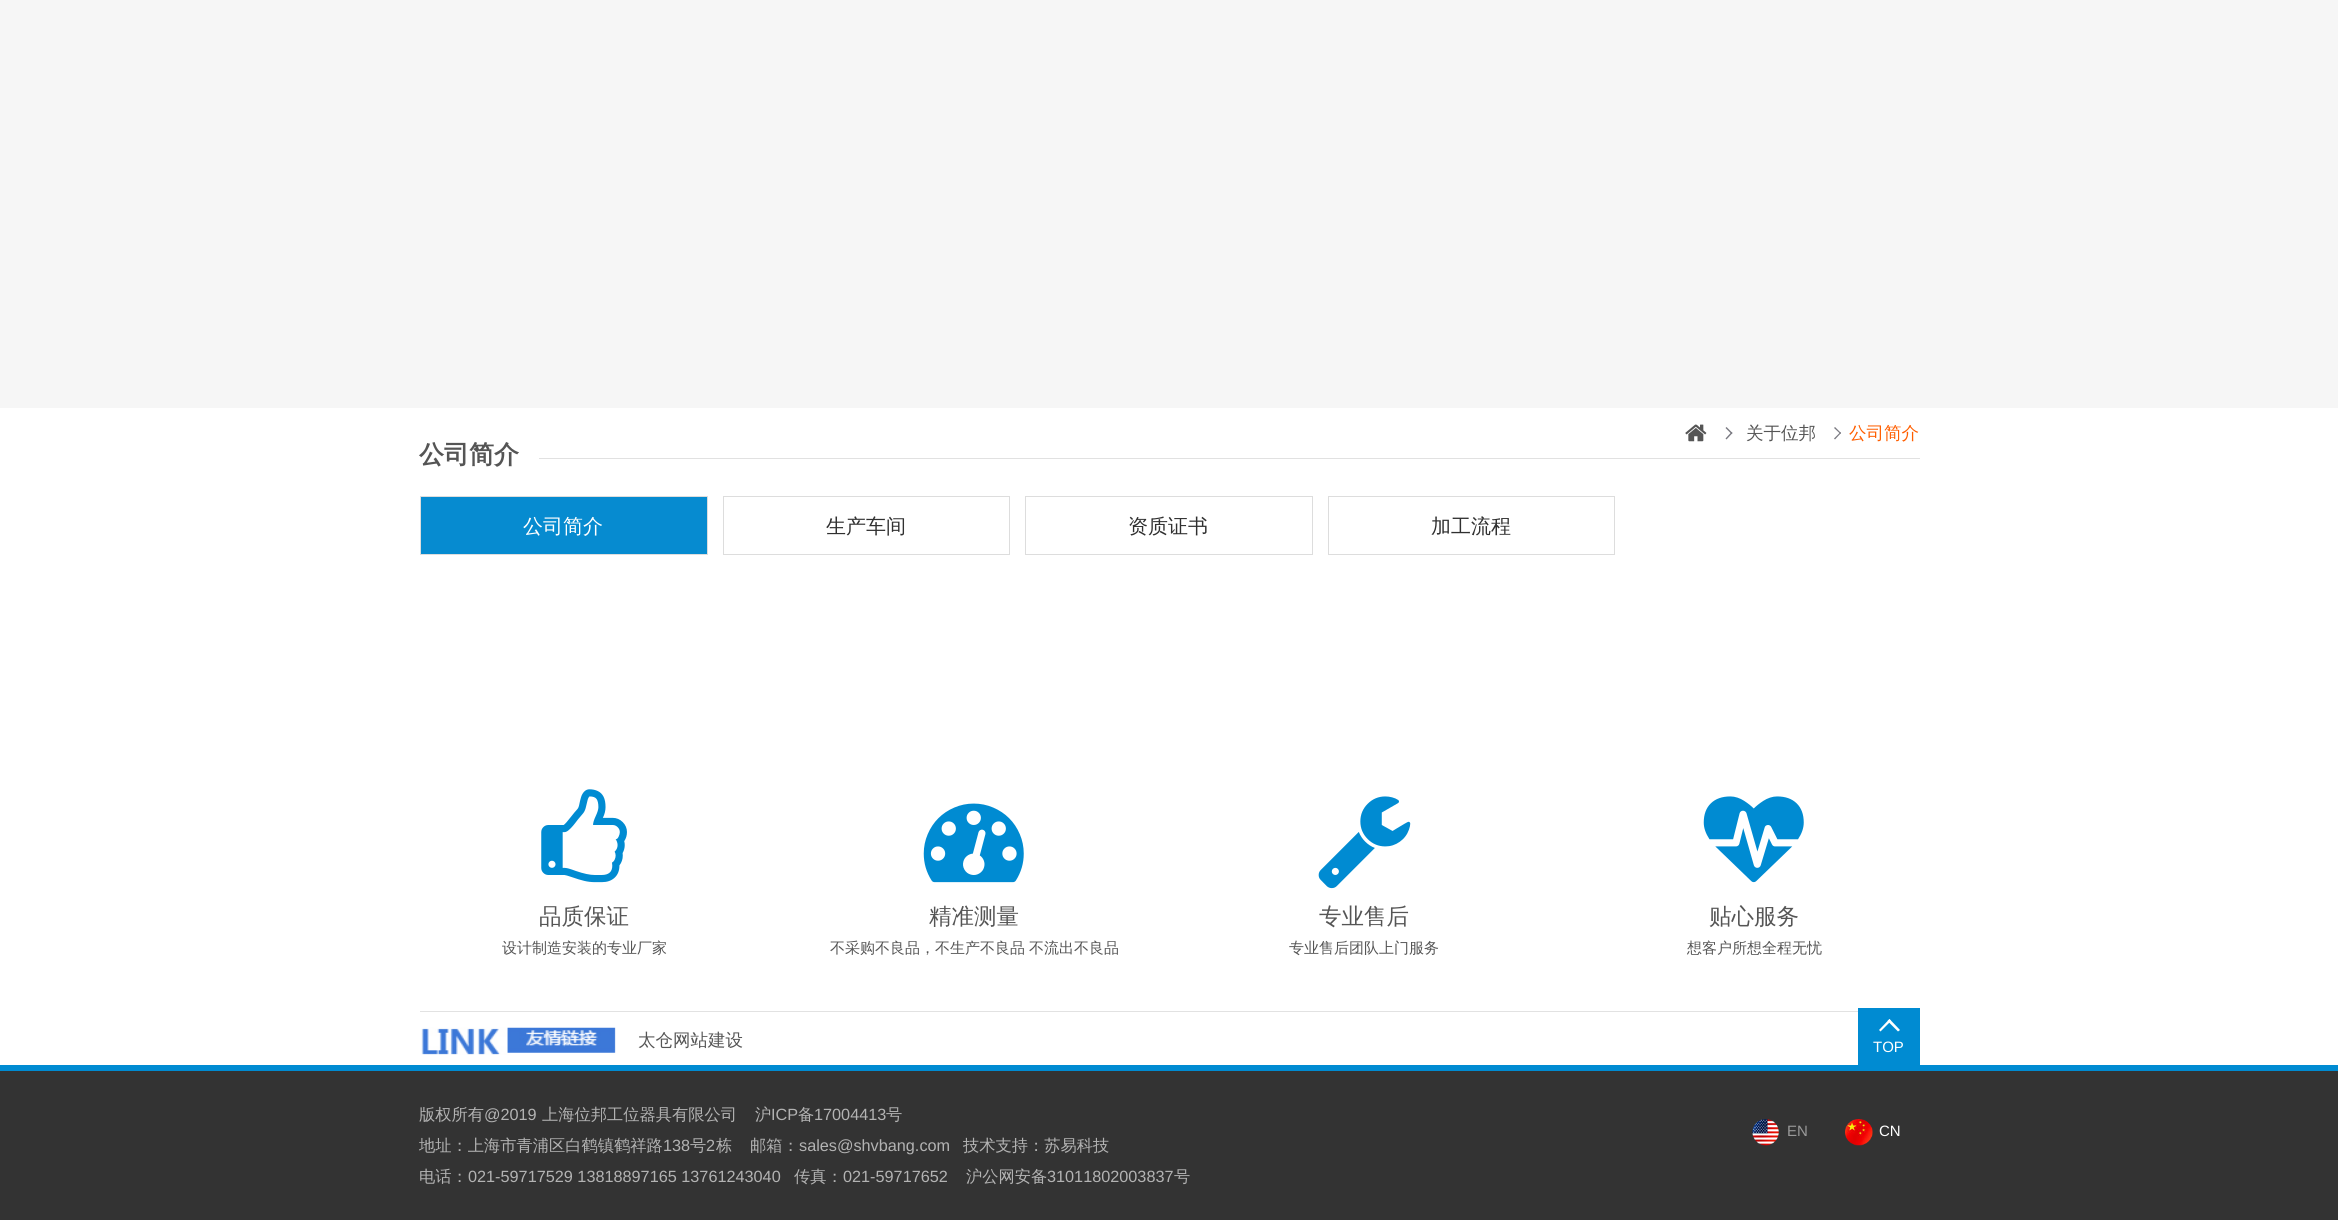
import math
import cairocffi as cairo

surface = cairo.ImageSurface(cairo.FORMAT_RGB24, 2338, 1220)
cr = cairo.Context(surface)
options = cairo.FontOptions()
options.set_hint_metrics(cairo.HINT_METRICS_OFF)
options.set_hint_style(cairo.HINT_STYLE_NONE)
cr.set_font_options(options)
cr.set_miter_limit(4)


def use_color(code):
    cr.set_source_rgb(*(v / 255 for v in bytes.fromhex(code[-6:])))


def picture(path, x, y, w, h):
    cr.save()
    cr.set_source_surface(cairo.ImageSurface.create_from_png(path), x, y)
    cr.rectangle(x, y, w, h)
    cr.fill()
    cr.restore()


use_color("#ffffff")
cr.paint()
use_color("#f6f6f6")
cr.rectangle(0, 0, 2338, 408)
cr.fill()
use_color("#e1e1e1")
cr.rectangle(539, 458, 1381, 1)
cr.fill()
picture("img1.png", 1685, 424, 22, 18)
use_color("#797981")
cr.new_path()
cr.move_to(1726.5, 427)
cr.line_to(1732.5, 433)
cr.line_to(1731.5, 434)
cr.line_to(1725.5, 428)
cr.close_path()
cr.fill()
cr.new_path()
cr.move_to(1731.5, 432)
cr.line_to(1732.5, 433)
cr.line_to(1726.5, 439.5)
cr.line_to(1725.5, 438.5)
cr.close_path()
cr.fill()
cr.select_font_face("WenQuanYi Zen Hei Medium")
cr.set_font_size(17.5)
use_color("#555555")
cr.move_to(1746, 439)
cr.show_text("关于位邦")
use_color("#797981")
cr.new_path()
cr.move_to(1835, 427)
cr.line_to(1841, 433)
cr.line_to(1840.5, 434)
cr.line_to(1834, 428)
cr.close_path()
cr.fill()
cr.new_path()
cr.move_to(1840.5, 432)
cr.line_to(1841, 433)
cr.line_to(1835, 439.5)
cr.line_to(1834, 438.5)
cr.close_path()
cr.fill()
use_color("#ff5e00")
cr.move_to(1849, 439)
cr.show_text("公司简介")
cr.select_font_face("WenQuanYi Zen Hei", cairo.FONT_SLANT_NORMAL, cairo.FONT_WEIGHT_BOLD)
cr.set_font_size(25)
use_color("#555555")
cr.move_to(419, 463)
cr.show_text("公司简介")
use_color("#068bd0")
cr.rectangle(420.5, 496.5, 287, 58)
cr.fill_preserve()
use_color("#dddddd")
cr.set_line_width(1)
cr.stroke()
cr.select_font_face("WenQuanYi Zen Hei Medium")
cr.set_font_size(20)
use_color("#ffffff")
cr.move_to(523, 533)
cr.show_text("公司简介")
cr.rectangle(723.5, 496.5, 286, 58)
use_color("#dddddd")
cr.stroke()
use_color("#303030")
cr.move_to(826, 533)
cr.show_text("生产车间")
cr.rectangle(1025.5, 496.5, 287, 58)
use_color("#dddddd")
cr.stroke()
use_color("#303030")
cr.move_to(1128, 533)
cr.show_text("资质证书")
cr.rectangle(1328.5, 496.5, 286, 58)
use_color("#dddddd")
cr.stroke()
use_color("#303030")
cr.move_to(1431, 533)
cr.show_text("加工流程")
picture("img2.png", 541, 789, 86, 94)
cr.set_font_size(22.5)
use_color("#555555")
cr.move_to(539, 924)
cr.show_text("品质保证")
cr.set_font_size(15)
cr.move_to(502, 953)
cr.show_text("设计制造安装的专业厂家")
picture("img3.png", 923, 803, 101, 80)
cr.set_font_size(22.5)
cr.move_to(929, 924)
cr.show_text("精准测量")
cr.set_font_size(15)
cr.move_to(830, 953)
cr.show_text("不采购不良品，不生产不良品")
cr.move_to(1029, 953)
cr.show_text("不流出不良品")
picture("img4.png", 1318, 796, 93, 93)
cr.set_font_size(22.5)
cr.move_to(1319, 924)
cr.show_text("专业售后")
cr.set_font_size(15)
cr.move_to(1289, 953)
cr.show_text("专业售后团队上门服务")
picture("img5.png", 1703, 796, 101, 87)
cr.set_font_size(22.5)
cr.move_to(1709, 924)
cr.show_text("贴心服务")
cr.set_font_size(15)
cr.move_to(1687, 953)
cr.show_text("想客户所想全程无忧")
use_color("#e2e2e2")
cr.rectangle(420, 1011, 1438, 1)
cr.fill()
picture("img6.png", 421, 1027, 195, 28)
cr.set_font_size(17.5)
use_color("#555555")
cr.move_to(638, 1046)
cr.show_text("太仓网站建设")
use_color("#333333")
cr.rectangle(0, 1071, 2338, 149)
cr.fill()
use_color("#008bd2")
cr.rectangle(0, 1065, 2338, 6)
cr.fill()
cr.rectangle(1858, 1008, 62, 57)
cr.fill()
use_color("#ffffff")
cr.new_path()
cr.move_to(1879, 1030)
cr.line_to(1889.5, 1019)
cr.line_to(1891, 1021)
cr.line_to(1880.5, 1031.5)
cr.close_path()
cr.fill()
cr.new_path()
cr.move_to(1887.5, 1021)
cr.line_to(1889.5, 1019)
cr.line_to(1900, 1030)
cr.line_to(1898, 1031.5)
cr.close_path()
cr.fill()
cr.select_font_face("Liberation Sans")
cr.set_font_size(15)
cr.move_to(1873, 1052)
cr.show_text("TOP")
cr.select_font_face("WenQuanYi Zen Hei Medium")
cr.set_font_size(16.25)
use_color("#b3b3b3")
cr.move_to(419, 1120)
cr.show_text("版权所有")
cr.select_font_face("Liberation Sans")
cr.move_to(484, 1120)
cr.show_text("@2019")
cr.select_font_face("WenQuanYi Zen Hei Medium")
cr.move_to(542, 1120)
cr.show_text("上海位邦工位器具有限公司")
cr.move_to(755, 1120)
cr.show_text("沪")
cr.select_font_face("Liberation Sans")
cr.move_to(771, 1120)
cr.show_text("ICP")
cr.select_font_face("WenQuanYi Zen Hei Medium")
cr.move_to(798, 1120)
cr.show_text("备")
cr.select_font_face("Liberation Sans")
cr.move_to(814, 1120)
cr.show_text("17004413")
cr.select_font_face("WenQuanYi Zen Hei Medium")
cr.move_to(886, 1120)
cr.show_text("号")
picture("img7.png", 1752, 1119, 27, 27)
cr.select_font_face("Liberation Sans")
cr.set_font_size(15)
use_color("#999999")
cr.move_to(1787, 1136)
cr.show_text("EN")
picture("img8.png", 1845, 1119, 28, 27)
use_color("#ffffff")
cr.move_to(1879, 1136)
cr.show_text("CN")
cr.select_font_face("WenQuanYi Zen Hei Medium")
cr.set_font_size(16.25)
use_color("#b3b3b3")
cr.move_to(419, 1151)
cr.show_text("地址：上海市青浦区白鹤镇鹤祥路")
cr.select_font_face("Liberation Sans")
cr.move_to(663, 1151)
cr.show_text("138")
cr.select_font_face("WenQuanYi Zen Hei Medium")
cr.move_to(690, 1151)
cr.show_text("号")
cr.select_font_face("Liberation Sans")
cr.move_to(706, 1151)
cr.show_text("2")
cr.select_font_face("WenQuanYi Zen Hei Medium")
cr.move_to(716, 1151)
cr.show_text("栋")
cr.move_to(750, 1151)
cr.show_text("邮箱：")
cr.select_font_face("Liberation Sans")
cr.move_to(799, 1151)
cr.show_text("sales@shvbang.com")
cr.select_font_face("WenQuanYi Zen Hei Medium")
cr.move_to(963, 1151)
cr.show_text("技术支持：苏易科技")
cr.move_to(419, 1182)
cr.show_text("电话：")
cr.select_font_face("Liberation Sans")
cr.move_to(468, 1182)
cr.show_text("021-59717529 13818897165 13761243040")
cr.select_font_face("WenQuanYi Zen Hei Medium")
cr.move_to(794, 1182)
cr.show_text("传真：")
cr.select_font_face("Liberation Sans")
cr.move_to(843, 1182)
cr.show_text("021-59717652")
cr.select_font_face("WenQuanYi Zen Hei Medium")
cr.move_to(966, 1182)
cr.show_text("沪公网安备")
cr.select_font_face("Liberation Sans")
cr.move_to(1047, 1182)
cr.show_text("31011802003837")
cr.select_font_face("WenQuanYi Zen Hei Medium")
cr.move_to(1174, 1182)
cr.show_text("号")
surface.write_to_png("result.png")
